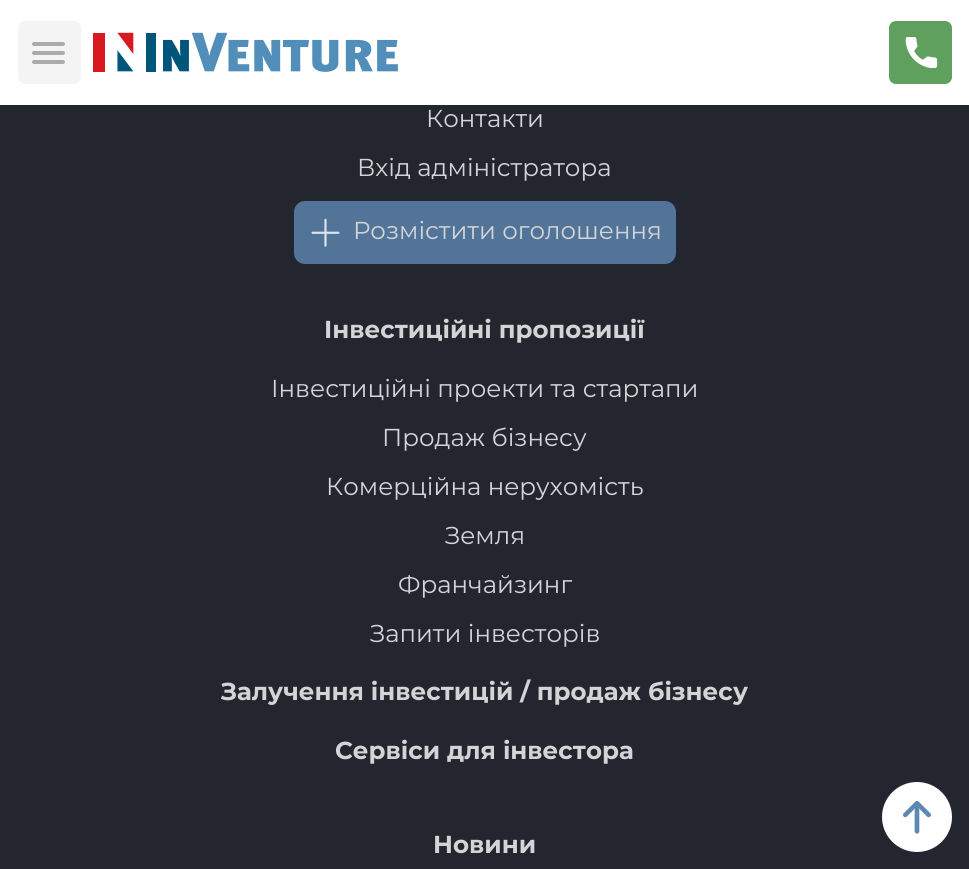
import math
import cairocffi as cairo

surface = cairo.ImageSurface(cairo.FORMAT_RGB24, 969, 869)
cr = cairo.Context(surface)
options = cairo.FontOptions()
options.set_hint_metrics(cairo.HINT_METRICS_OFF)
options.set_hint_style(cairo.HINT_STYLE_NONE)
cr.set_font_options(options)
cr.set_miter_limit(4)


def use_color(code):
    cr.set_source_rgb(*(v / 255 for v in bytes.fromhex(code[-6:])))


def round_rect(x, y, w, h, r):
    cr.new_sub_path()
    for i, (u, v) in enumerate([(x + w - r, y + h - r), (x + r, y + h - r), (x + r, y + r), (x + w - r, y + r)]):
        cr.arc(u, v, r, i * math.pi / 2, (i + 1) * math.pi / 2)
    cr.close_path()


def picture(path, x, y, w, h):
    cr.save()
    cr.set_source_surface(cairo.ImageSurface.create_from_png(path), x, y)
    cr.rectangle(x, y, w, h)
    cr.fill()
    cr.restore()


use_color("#23262f")
cr.paint()
use_color("#ffffff")
cr.rectangle(0, 0, 969, 105)
cr.fill()
use_color("#f4f4f4")
round_rect(18, 21, 63, 63, 7)
cr.fill()
use_color("#ababab")
round_rect(32, 60, 33, 4, 2)
cr.fill()
round_rect(32, 51, 33, 4, 2)
cr.fill()
round_rect(32, 42, 33, 4, 2)
cr.fill()
picture("img1.png", 93, 32, 305, 40)
use_color("#5fa05f")
round_rect(889, 21, 63, 63, 7)
cr.fill()
picture("img2.png", 905, 37, 33, 31)
cr.select_font_face("Montserrat")
cr.set_font_size(24.5)
use_color("#d3d4d5")
cr.move_to(426, 127)
cr.show_text("Контакти")
cr.move_to(357, 176)
cr.show_text("Вхід адміністратора")
use_color("#527499")
round_rect(294, 201, 382, 63, 11)
cr.fill()
picture("img3.png", 311, 218, 29, 29)
use_color("#d3d4d5")
cr.move_to(353, 239)
cr.show_text("Розмістити оголошення")
cr.select_font_face("Montserrat", cairo.FONT_SLANT_NORMAL, cairo.FONT_WEIGHT_BOLD)
cr.move_to(324, 338)
cr.show_text("Інвестиційні пропозиції")
cr.select_font_face("Montserrat")
cr.move_to(271, 397)
cr.show_text("Інвестиційні проекти та стартапи")
cr.move_to(382, 446)
cr.show_text("Продаж бізнесу")
cr.move_to(326, 495)
cr.show_text("Комерційна нерухомість")
cr.move_to(445, 544)
cr.show_text("Земля")
cr.move_to(398, 593)
cr.show_text("Франчайзинг")
cr.move_to(370, 642)
cr.show_text("Запити інвесторів")
cr.select_font_face("Montserrat", cairo.FONT_SLANT_NORMAL, cairo.FONT_WEIGHT_BOLD)
cr.move_to(221, 700)
cr.show_text("Залучення інвестицій / продаж бізнесу")
cr.move_to(335, 759)
cr.show_text("Сервіси для інвестора")
cr.move_to(433, 853)
cr.show_text("Новини")
picture("img4.png", 882, 782, 70, 70)
surface.write_to_png("result.png")
